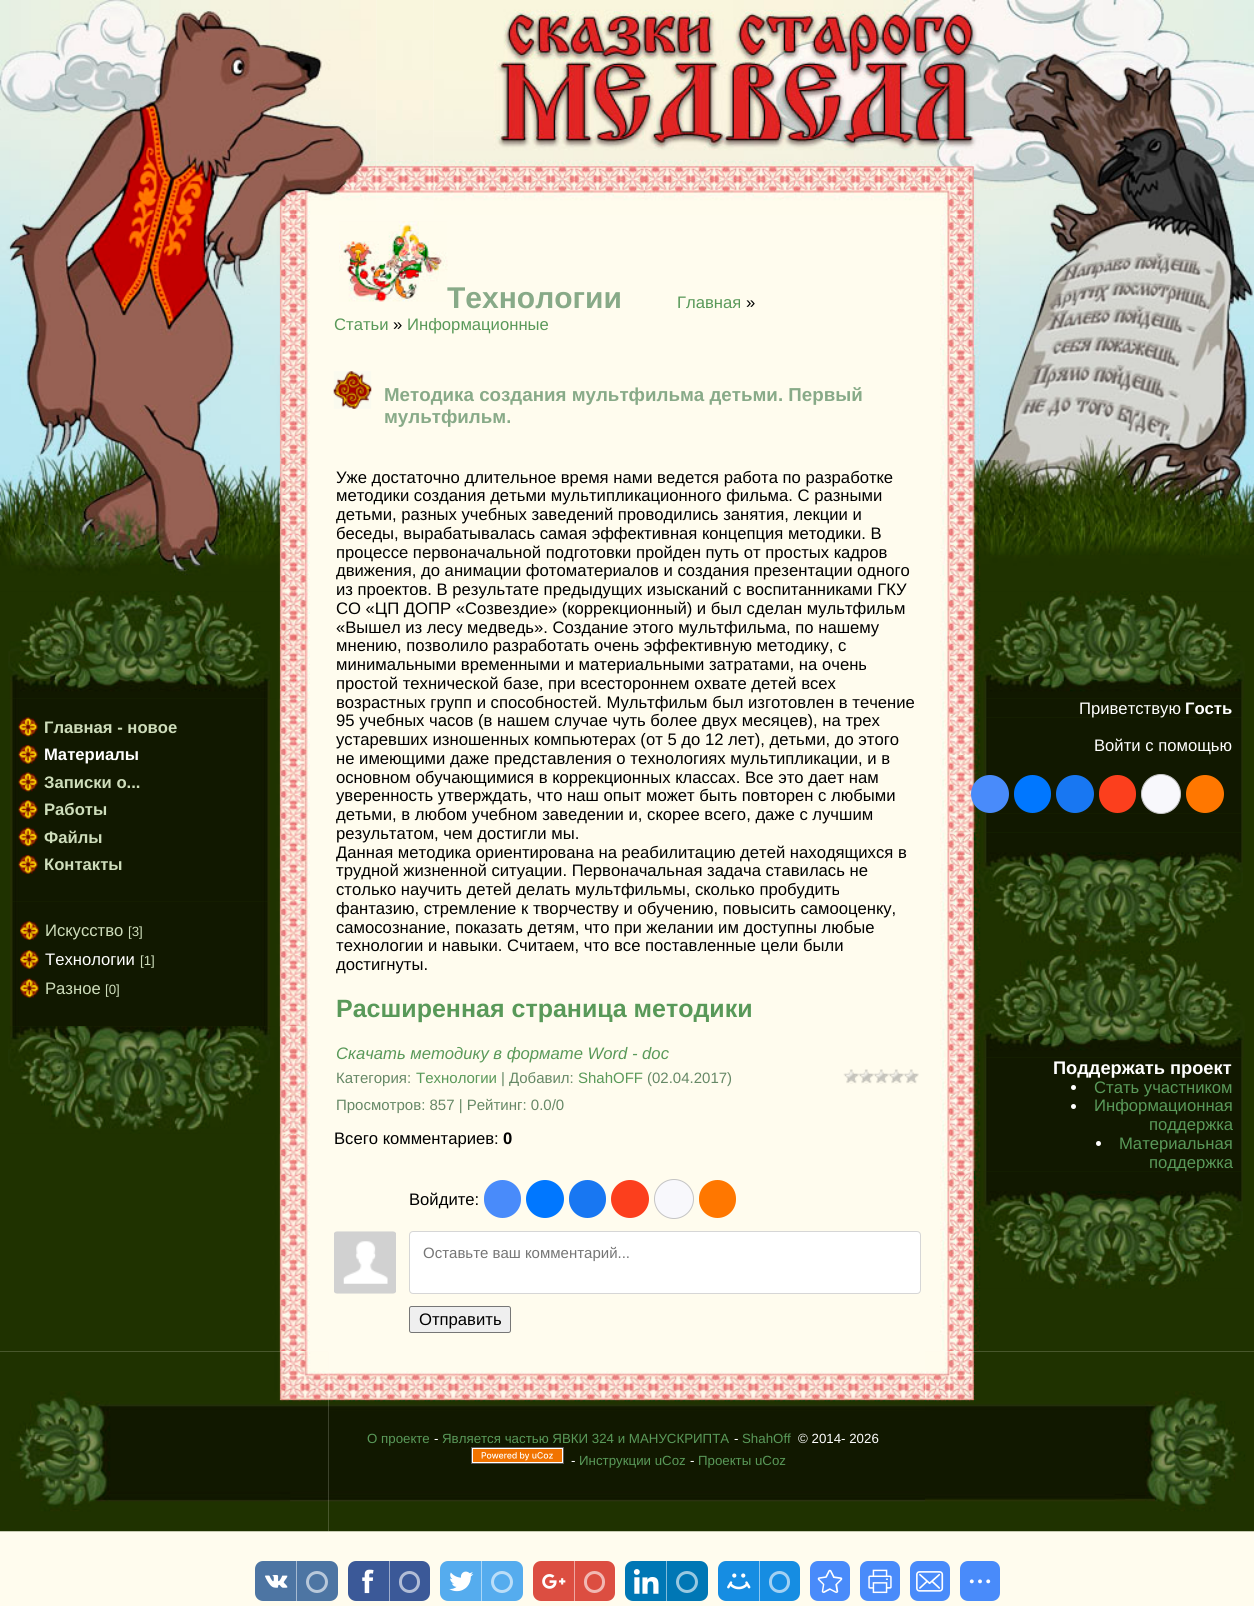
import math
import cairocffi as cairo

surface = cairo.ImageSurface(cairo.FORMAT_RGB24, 1254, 1606)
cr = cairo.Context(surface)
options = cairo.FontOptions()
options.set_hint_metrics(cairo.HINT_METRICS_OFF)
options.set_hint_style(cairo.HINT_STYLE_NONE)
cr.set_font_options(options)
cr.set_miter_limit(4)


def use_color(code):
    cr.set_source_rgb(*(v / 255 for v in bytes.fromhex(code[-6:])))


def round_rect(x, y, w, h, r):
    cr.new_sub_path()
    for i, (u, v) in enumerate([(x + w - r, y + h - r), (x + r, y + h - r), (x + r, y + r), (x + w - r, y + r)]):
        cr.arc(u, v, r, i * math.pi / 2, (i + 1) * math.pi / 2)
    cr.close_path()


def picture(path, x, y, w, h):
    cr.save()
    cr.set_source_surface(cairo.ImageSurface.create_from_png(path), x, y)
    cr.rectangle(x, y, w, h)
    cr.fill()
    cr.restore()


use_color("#fffcee")
cr.paint()
picture("img2.png", 376, 0, 58, 200)
picture("img1.png", 0, 0, 377, 215)
picture("img3.png", 433, 0, 821, 215)
picture("img4.png", 0, 591, 310, 761)
picture("img5.png", 0, 215, 310, 377)
picture("img7.png", 10, 698, 300, 204)
picture("img6.png", 8, 591, 302, 108)
picture("img8.png", 18, 717, 20, 20)
cr.select_font_face("Liberation Sans", cairo.FONT_SLANT_NORMAL, cairo.FONT_WEIGHT_BOLD)
cr.set_font_size(16.65)
use_color("#ceddbb")
cr.move_to(44, 733)
cr.show_text("Главная - новое")
picture("img9.png", 18, 745, 20, 19)
use_color("#ffffff")
cr.move_to(44, 760)
cr.show_text("Материалы")
picture("img10.png", 18, 772, 20, 20)
use_color("#ceddbb")
cr.move_to(44, 788)
cr.show_text("Записки о...")
picture("img9.png", 18, 800, 20, 19)
cr.move_to(44, 815)
cr.show_text("Работы")
picture("img8.png", 18, 827, 20, 20)
cr.move_to(44, 843)
cr.show_text("Файлы")
picture("img9.png", 18, 855, 20, 19)
cr.move_to(44, 870)
cr.show_text("Контакты")
picture("img11.png", 10, 901, 300, 126)
picture("img12.png", 20, 921, 19, 19)
cr.select_font_face("Liberation Sans")
cr.move_to(45, 936)
cr.show_text("Искусство")
cr.set_font_size(13.3)
cr.move_to(128, 936)
cr.show_text("[3]")
picture("img13.png", 20, 950, 19, 19)
cr.set_font_size(16.65)
use_color("#ffffff")
cr.move_to(45, 965)
cr.show_text("Технологии")
cr.set_font_size(13.3)
use_color("#ceddbb")
cr.move_to(140, 965)
cr.show_text("[1]")
picture("img14.png", 20, 978, 19, 20)
cr.set_font_size(16.65)
cr.move_to(45, 994)
cr.show_text("Разное")
cr.set_font_size(13.3)
cr.move_to(105, 994)
cr.show_text("[0]")
picture("img15.png", 8, 1026, 302, 108)
picture("img16.png", 339, 221, 109, 81)
cr.select_font_face("Liberation Sans", cairo.FONT_SLANT_NORMAL, cairo.FONT_WEIGHT_BOLD)
cr.set_font_size(30)
use_color("#88aa88")
cr.move_to(447, 308)
cr.show_text("Технологии")
cr.select_font_face("Liberation Sans")
cr.set_font_size(16.65)
use_color("#599959")
cr.move_to(677, 308)
cr.show_text("Главная")
use_color("#000000")
cr.move_to(746, 308)
cr.show_text("»")
use_color("#599959")
cr.move_to(334, 330)
cr.show_text("Статьи")
use_color("#000000")
cr.move_to(393, 330)
cr.show_text("»")
use_color("#599959")
cr.move_to(407, 330)
cr.show_text("Информационные")
picture("img17.png", 333, 371, 39, 38)
cr.select_font_face("Liberation Sans", cairo.FONT_SLANT_NORMAL, cairo.FONT_WEIGHT_BOLD)
cr.set_font_size(18.75)
use_color("#88aa88")
cr.move_to(384, 401)
cr.show_text("Методика создания мультфильма детьми. Первый")
cr.move_to(384, 423)
cr.show_text("мультфильм.")
cr.select_font_face("Liberation Sans")
cr.set_font_size(16.65)
use_color("#000000")
cr.move_to(336, 483)
cr.show_text("Уже достаточно длительное время нами ведется работа по разработке")
cr.move_to(336, 501)
cr.show_text("методики создания детьми мультипликационного фильма. С разными")
cr.move_to(336, 520)
cr.show_text("детьми, разных учебных заведений проводились занятия, лекции и")
cr.move_to(336, 539)
cr.show_text("беседы, вырабатывалась самая эффективная концепция методики. В")
cr.move_to(336, 558)
cr.show_text("процессе первоначальной подготовки пройден путь от простых кадров")
cr.move_to(336, 576)
cr.show_text("движения, до анимации фотоматериалов и создания презентации одного")
cr.move_to(336, 595)
cr.show_text("из проектов. В результате предыдущих изысканий с воспитанниками ГКУ")
cr.move_to(336, 614)
cr.show_text("СО «ЦП ДОПР «Созвездие» (коррекционный) и был сделан мультфильм")
cr.move_to(336, 633)
cr.show_text("«Вышел из лесу медведь». Создание этого мультфильма, по нашему")
cr.move_to(336, 651)
cr.show_text("мнению, позволило разработать очень эффективную методику, с")
cr.move_to(336, 670)
cr.show_text("минимальными временными и материальными затратами, на очень")
cr.move_to(336, 689)
cr.show_text("простой технической базе, при всестороннем охвате детей всех")
cr.move_to(336, 708)
cr.show_text("возрастных групп и способностей. Мультфильм был изготовлен в течение")
cr.move_to(336, 726)
cr.show_text("95 учебных часов (в нашем случае чуть более двух месяцев), на трех")
cr.move_to(336, 745)
cr.show_text("устаревших изношенных компьютерах (от 5 до 12 лет), детьми, до этого")
cr.move_to(336, 764)
cr.show_text("не имеющими даже представления о технологиях мультипликации, и в")
cr.move_to(336, 783)
cr.show_text("основном обучающимися в коррекционных классах. Все это дает нам")
cr.move_to(336, 801)
cr.show_text("уверенность утверждать, что наш опыт может быть повторен с любыми")
cr.move_to(336, 820)
cr.show_text("детьми, в любом учебном заведении и, скорее всего, даже с лучшим")
cr.move_to(336, 839)
cr.show_text("результатом, чем достигли мы.")
cr.move_to(336, 858)
cr.show_text("Данная методика ориентирована на реабилитацию детей находящихся в")
cr.move_to(336, 876)
cr.show_text("трудной жизненной ситуации. Первоначальная задача ставилась не")
cr.move_to(336, 895)
cr.show_text("столько научить детей делать мультфильмы, сколько пробудить")
cr.move_to(336, 914)
cr.show_text("фантазию, стремление к творчеству и обучению, повысить самооценку,")
cr.move_to(336, 933)
cr.show_text("самосознание, показать детям, что при желании им доступны любые")
cr.move_to(336, 951)
cr.show_text("технологии и навыки. Считаем, что все поставленные цели были")
cr.move_to(336, 970)
cr.show_text("достигнуты.")
cr.select_font_face("Liberation Sans", cairo.FONT_SLANT_NORMAL, cairo.FONT_WEIGHT_BOLD)
cr.set_font_size(25)
use_color("#599959")
cr.move_to(336, 1017)
cr.show_text("Расширенная страница методики")
cr.select_font_face("Liberation Sans", cairo.FONT_SLANT_ITALIC)
cr.set_font_size(16.65)
cr.move_to(336, 1059)
cr.show_text("Скачать методику в формате Word - doc")
cr.select_font_face("Liberation Sans")
cr.set_font_size(15)
use_color("#668866")
cr.move_to(336, 1083)
cr.show_text("Категория:")
use_color("#599959")
cr.move_to(416, 1083)
cr.show_text("Технологии")
use_color("#668866")
cr.move_to(501, 1083)
cr.show_text("| Добавил:")
use_color("#599959")
cr.move_to(578, 1083)
cr.show_text("ShahOFF")
use_color("#668866")
cr.move_to(647, 1083)
cr.show_text("(02.04.2017)")
picture("img18.png", 843, 1069, 76, 15)
cr.move_to(336, 1110)
cr.show_text("Просмотров: 857 | Рейтинг: 0.0/0")
cr.set_font_size(16.65)
use_color("#000000")
cr.move_to(334, 1144)
cr.show_text("Всего комментариев:")
cr.select_font_face("Liberation Sans", cairo.FONT_SLANT_NORMAL, cairo.FONT_WEIGHT_BOLD)
cr.move_to(503, 1144)
cr.show_text("0")
cr.select_font_face("Liberation Sans")
cr.move_to(409, 1205)
cr.show_text("Войдите:")
use_color("#498bfa")
round_rect(484, 1180, 37, 38, 18.5)
cr.fill()
use_color("#0077ff")
cr.arc(545, 1199, 19, 0, 2 * math.pi)
cr.fill()
use_color("#1877f2")
round_rect(569, 1180, 37, 38, 18.5)
cr.fill()
use_color("#fc3f1d")
cr.arc(630, 1199, 19, 0, 2 * math.pi)
cr.fill()
use_color("#f8f8fc")
cr.arc(674, 1199, 19.5, 0, 2 * math.pi)
cr.fill_preserve()
use_color("#c4c4c4")
cr.set_line_width(1)
cr.stroke()
use_color("#ff7700")
round_rect(699, 1180, 37, 38, 18.5)
cr.fill()
picture("img19.png", 334, 1231, 62, 63)
use_color("#ffffff")
round_rect(409.5, 1231.5, 511, 62, 3.5)
cr.fill_preserve()
use_color("#d6d6d6")
cr.stroke()
cr.set_font_size(15)
use_color("#757575")
cr.move_to(423, 1258)
cr.show_text("Оставьте ваш комментарий...")
use_color("#efefef")
round_rect(409.5, 1306.5, 101, 26, 2)
cr.fill_preserve()
use_color("#767676")
cr.stroke()
cr.set_font_size(16.65)
use_color("#000000")
cr.move_to(419, 1325)
cr.show_text("Отправить")
picture("img20.png", 940, 591, 314, 761)
picture("img21.png", 940, 215, 314, 377)
picture("img23.png", 940, 698, 303, 20)
picture("img22.png", 940, 591, 305, 108)
picture("img24.png", 940, 717, 303, 38)
use_color("#ffffff")
cr.move_to(1079, 714)
cr.show_text("Приветствую")
cr.select_font_face("Liberation Sans", cairo.FONT_SLANT_NORMAL, cairo.FONT_WEIGHT_BOLD)
cr.move_to(1185, 714)
cr.show_text("Гость")
cr.select_font_face("Liberation Sans")
cr.move_to(1094, 751)
cr.show_text("Войти с помощью")
picture("img25.png", 940, 755, 303, 59)
use_color("#498bfa")
cr.arc(990, 794, 19, 0, 2 * math.pi)
cr.fill()
use_color("#0077ff")
round_rect(1014, 775, 37, 38, 18.5)
cr.fill()
use_color("#1877f2")
cr.arc(1075, 794, 19, 0, 2 * math.pi)
cr.fill()
use_color("#fc3f1d")
round_rect(1099, 775, 37, 38, 18.5)
cr.fill()
picture("img26.png", 940, 813, 303, 20)
use_color("#f8f8fc")
cr.arc(1161, 794, 19.5, 0, 2 * math.pi)
cr.fill_preserve()
use_color("#c4c4c4")
cr.stroke()
use_color("#ff7700")
cr.arc(1205, 794, 19, 0, 2 * math.pi)
cr.fill()
picture("img27.png", 940, 832, 303, 118)
picture("img29.png", 940, 1057, 303, 115)
picture("img28.png", 940, 950, 305, 108)
cr.select_font_face("Liberation Sans", cairo.FONT_SLANT_NORMAL, cairo.FONT_WEIGHT_BOLD)
cr.set_font_size(18.25)
use_color("#ffffff")
cr.move_to(1053, 1074)
cr.show_text("Поддержать проект")
cr.new_path()
cr.arc(1073.5, 1087.5, 2.5, 0, 2 * math.pi)
cr.fill()
cr.select_font_face("Liberation Sans")
cr.set_font_size(16.65)
use_color("#599959")
cr.move_to(1094, 1093)
cr.show_text("Стать участником")
use_color("#ffffff")
cr.new_path()
cr.arc(1073.5, 1106.5, 2.5, 0, 2 * math.pi)
cr.fill()
use_color("#599959")
cr.move_to(1094, 1111)
cr.show_text("Информационная")
cr.move_to(1149, 1130)
cr.show_text("поддержка")
use_color("#ffffff")
cr.new_path()
cr.arc(1098.5, 1143.5, 2.5, 0, 2 * math.pi)
cr.fill()
use_color("#599959")
cr.move_to(1119, 1149)
cr.show_text("Материальная")
cr.move_to(1149, 1168)
cr.show_text("поддержка")
picture("img30.png", 940, 1171, 303, 118)
picture("img32.png", 328, 1371, 597, 161)
picture("img31.png", 0, 1351, 329, 181)
cr.set_font_size(13.3)
cr.move_to(367, 1443)
cr.show_text("О проекте")
use_color("#ffffff")
cr.move_to(434, 1443)
cr.show_text("-")
use_color("#599959")
cr.move_to(442, 1443)
cr.show_text("Является частью ЯВКИ 324 и МАНУСКРИПТА")
use_color("#ffffff")
cr.move_to(734, 1443)
cr.show_text("-")
use_color("#599959")
cr.move_to(742, 1443)
cr.show_text("ShahOff")
use_color("#ffffff")
cr.move_to(798, 1443)
cr.show_text("© 2014- 2026")
picture("img33.png", 471, 1447, 93, 17)
cr.move_to(571, 1465)
cr.show_text("-")
use_color("#599959")
cr.move_to(579, 1465)
cr.show_text("Инструкции uCoz")
use_color("#ffffff")
cr.move_to(690, 1465)
cr.show_text("-")
use_color("#599959")
cr.move_to(698, 1465)
cr.show_text("Проекты uCoz")
picture("img34.png", 925, 1351, 329, 181)
use_color("#4d75a3")
round_rect(255, 1561, 83, 40, 8)
cr.fill()
picture("img35.png", 265, 1575, 23, 13)
use_color("#a6bad1")
cr.rectangle(296, 1561, 1, 40)
cr.fill()
cr.arc(317, 1582, 9.5, 0, 2 * math.pi)
use_color("#b8c8da")
cr.set_line_width(3)
cr.stroke()
use_color("#3b5998")
round_rect(348, 1561, 82, 40, 8)
cr.fill()
picture("img36.png", 362, 1569, 12, 25)
use_color("#9daccc")
cr.rectangle(389, 1561, 1, 40)
cr.fill()
round_rect(400.5, 1572.5, 18, 19, 9)
use_color("#b1bdd6")
cr.stroke()
use_color("#55acee")
round_rect(440, 1561, 83, 40, 8)
cr.fill()
picture("img37.png", 449, 1571, 25, 21)
use_color("#aad6f7")
cr.rectangle(481, 1561, 1, 40)
cr.fill()
cr.arc(502, 1582, 9.5, 0, 2 * math.pi)
use_color("#bbdef8")
cr.stroke()
use_color("#dc4e41")
round_rect(533, 1561, 82, 40, 8)
cr.fill()
picture("img38.png", 542, 1574, 24, 15)
use_color("#eea7a0")
cr.rectangle(574, 1561, 1, 40)
cr.fill()
round_rect(585.5, 1572.5, 18, 19, 9)
use_color("#f1b8b3")
cr.stroke()
use_color("#0077b5")
round_rect(625, 1561, 83, 40, 8)
cr.fill()
picture("img39.png", 633, 1569, 26, 25)
use_color("#80bbda")
cr.rectangle(666, 1561, 1, 40)
cr.fill()
cr.arc(687, 1582, 9.5, 0, 2 * math.pi)
use_color("#99c9e1")
cr.stroke()
use_color("#168de2")
round_rect(718, 1561, 82, 40, 8)
cr.fill()
picture("img40.png", 727, 1573, 24, 17)
use_color("#8bc6f1")
cr.rectangle(759, 1561, 1, 40)
cr.fill()
round_rect(770.5, 1572.5, 18, 19, 9)
use_color("#a2d1f3")
cr.stroke()
use_color("#498bfa")
round_rect(810, 1561, 40, 40, 8)
cr.fill()
picture("img41.png", 817, 1569, 26, 24)
round_rect(860, 1561, 40, 40, 8)
cr.fill()
picture("img42.png", 868, 1569, 24, 25)
round_rect(910, 1561, 40, 40, 8)
cr.fill()
picture("img43.png", 916, 1571, 28, 21)
round_rect(960, 1561, 40, 40, 8)
cr.fill()
picture("img44.png", 969, 1579, 22, 5)
surface.write_to_png("result.png")
